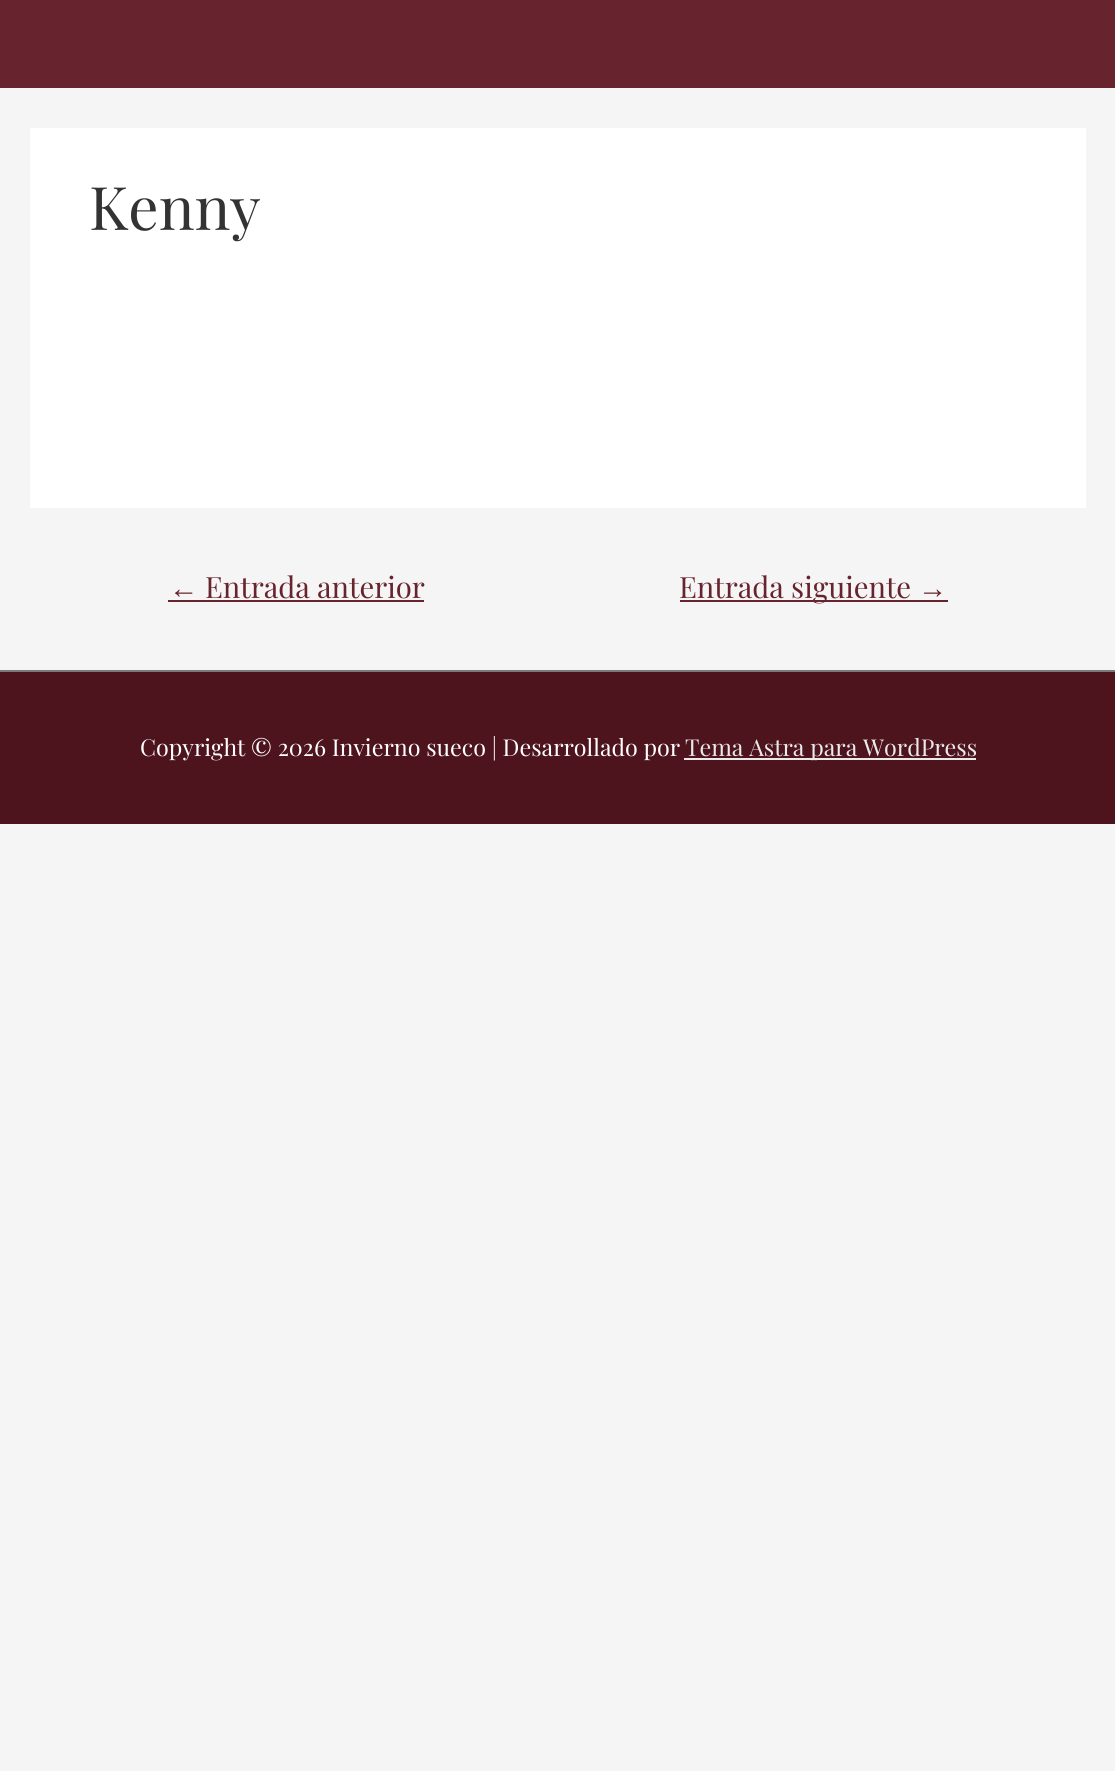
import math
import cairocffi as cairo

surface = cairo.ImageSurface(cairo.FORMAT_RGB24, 1115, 1771)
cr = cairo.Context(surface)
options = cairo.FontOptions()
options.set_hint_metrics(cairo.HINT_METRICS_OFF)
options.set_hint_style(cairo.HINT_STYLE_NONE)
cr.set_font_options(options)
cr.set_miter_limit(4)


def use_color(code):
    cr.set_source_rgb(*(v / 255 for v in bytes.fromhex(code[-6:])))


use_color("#f5f5f5")
cr.paint()
use_color("#68242e")
cr.rectangle(0, 0, 1115, 88)
cr.fill()
use_color("#ffffff")
cr.rectangle(30, 128, 1056, 380)
cr.fill()
cr.select_font_face("Playfair Display")
cr.set_font_size(60)
use_color("#333333")
cr.move_to(89, 230)
cr.show_text("Kenny")
cr.select_font_face("Liberation Serif")
cr.set_font_size(29.25)
use_color("#68242e")
cr.move_to(169, 598)
cr.show_text("←")
cr.rectangle(168, 600, 256, 2)
cr.fill()
cr.select_font_face("Playfair Display")
cr.move_to(205, 598)
cr.show_text("Entrada anterior")
cr.rectangle(680, 600, 268, 2)
cr.fill()
cr.move_to(679, 598)
cr.show_text("Entrada siguiente")
cr.select_font_face("Liberation Serif")
cr.move_to(918, 598)
cr.show_text("→")
use_color("#7a7a7a")
cr.rectangle(0, 670, 1115, 2)
cr.fill()
use_color("#4e141e")
cr.rectangle(0, 672, 1115, 152)
cr.fill()
cr.select_font_face("Playfair Display")
cr.set_font_size(23.25)
use_color("#ffffff")
cr.move_to(140, 756)
cr.show_text("Copyright © 2026 Invierno sueco | Desarrollado por")
use_color("#eaeaea")
cr.rectangle(684, 758, 292, 2)
cr.fill()
cr.move_to(685, 756)
cr.show_text("Tema Astra para WordPress")
surface.write_to_png("result.png")
